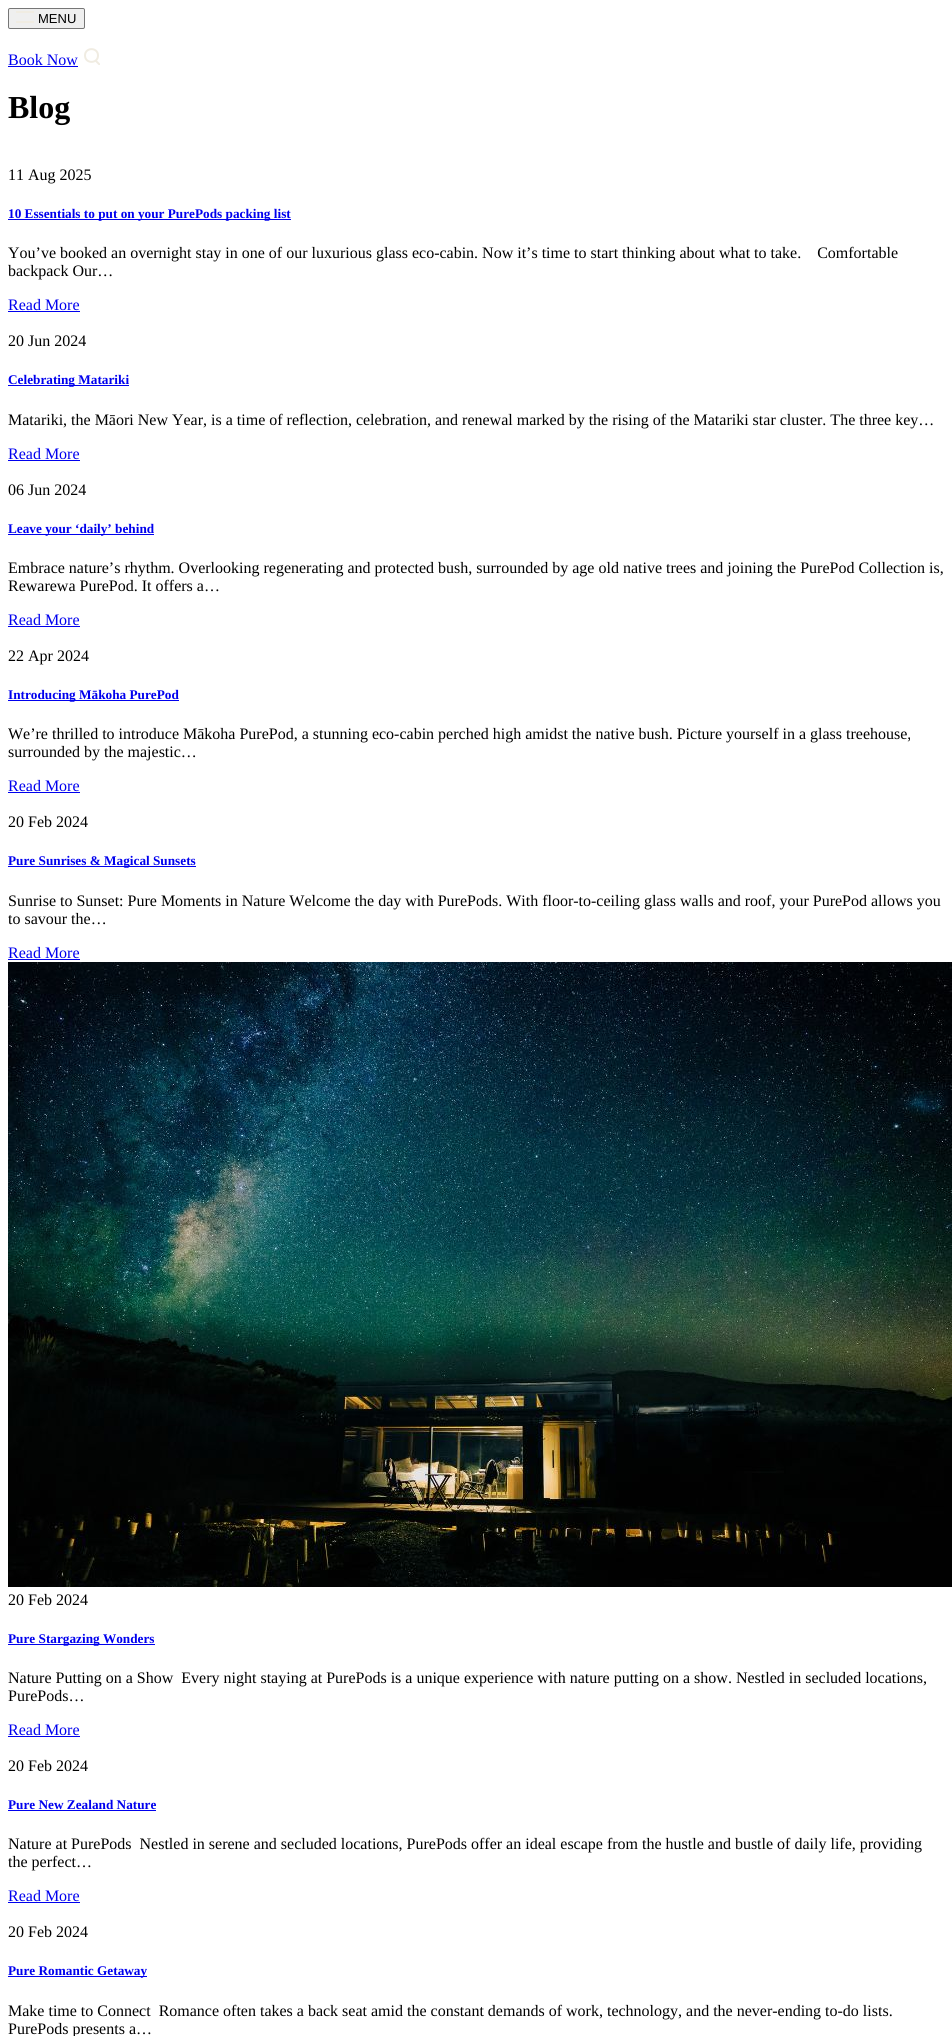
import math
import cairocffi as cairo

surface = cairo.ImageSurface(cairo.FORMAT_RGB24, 952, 2036)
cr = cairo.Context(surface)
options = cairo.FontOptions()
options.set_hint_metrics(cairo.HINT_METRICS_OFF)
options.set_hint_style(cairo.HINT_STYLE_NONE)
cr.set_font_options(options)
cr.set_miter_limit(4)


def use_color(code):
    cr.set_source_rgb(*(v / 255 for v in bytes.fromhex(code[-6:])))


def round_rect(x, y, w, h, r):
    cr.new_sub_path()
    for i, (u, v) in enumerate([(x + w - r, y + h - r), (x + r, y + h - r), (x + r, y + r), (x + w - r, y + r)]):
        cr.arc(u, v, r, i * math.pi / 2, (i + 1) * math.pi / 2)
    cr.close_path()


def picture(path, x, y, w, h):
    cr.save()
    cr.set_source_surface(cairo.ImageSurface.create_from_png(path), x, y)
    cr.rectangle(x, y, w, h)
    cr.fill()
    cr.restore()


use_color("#ffffff")
cr.paint()
use_color("#efefef")
round_rect(8.5, 8.5, 76, 20, 1.5)
cr.fill_preserve()
use_color("#767676")
cr.set_line_width(1)
cr.stroke()
use_color("#f0ece2")
cr.rectangle(16, 11, 18, 2)
cr.fill()
cr.rectangle(16, 21, 18, 2)
cr.fill()
cr.select_font_face("Liberation Sans")
cr.set_font_size(13)
use_color("#000000")
cr.move_to(38, 23)
cr.show_text("MENU")
cr.select_font_face("Liberation Serif")
cr.set_font_size(16)
use_color("#0000ee")
cr.move_to(8, 65)
cr.show_text("Book Now")
cr.rectangle(8, 66, 70, 1)
cr.fill()
cr.save()
cr.rectangle(82, 47, 18, 18)
cr.clip()
cr.new_path()
cr.move_to(99.5, 64.5)
cr.line_to(96, 61)
cr.move_to(98, 55.5)
cr.curve_to(98, 64, 85, 64, 85, 55.5)
cr.curve_to(85, 47, 98, 47, 98, 55.5)
cr.close_path()
use_color("#f0ece2")
cr.set_line_width(2)
cr.set_line_cap(cairo.LINE_CAP_ROUND)
cr.set_line_join(cairo.LINE_JOIN_ROUND)
cr.stroke()
cr.restore()
cr.select_font_face("Liberation Serif", cairo.FONT_SLANT_NORMAL, cairo.FONT_WEIGHT_BOLD)
cr.set_font_size(32)
use_color("#000000")
cr.move_to(8, 118)
cr.show_text("Blog")
cr.select_font_face("Liberation Serif")
cr.set_font_size(16)
cr.move_to(8, 180)
cr.show_text("11 Aug 2025")
use_color("#0000ee")
cr.rectangle(8, 219, 283, 1)
cr.fill()
cr.select_font_face("Liberation Serif", cairo.FONT_SLANT_NORMAL, cairo.FONT_WEIGHT_BOLD)
cr.set_font_size(13.25)
cr.move_to(8, 218)
cr.show_text("10 Essentials to put on your PurePods packing list")
cr.select_font_face("Liberation Serif")
cr.set_font_size(16)
use_color("#000000")
cr.move_to(8, 258)
cr.show_text("You’ve booked an overnight stay in one of our luxurious glass eco-cabin. Now it’s time to start thinking about what to take.    Comfortable")
cr.move_to(8, 276)
cr.show_text("backpack Our…")
use_color("#0000ee")
cr.move_to(8, 310)
cr.show_text("Read More")
cr.rectangle(8, 311, 72, 1)
cr.fill()
use_color("#000000")
cr.move_to(8, 346)
cr.show_text("20 Jun 2024")
use_color("#0000ee")
cr.rectangle(8, 385, 121, 1)
cr.fill()
cr.select_font_face("Liberation Serif", cairo.FONT_SLANT_NORMAL, cairo.FONT_WEIGHT_BOLD)
cr.set_font_size(13.25)
cr.move_to(8, 384)
cr.show_text("Celebrating Matariki")
cr.select_font_face("Liberation Serif")
cr.set_font_size(16)
use_color("#000000")
cr.move_to(8, 425)
cr.show_text("Matariki, the Māori New Year, is a time of reflection, celebration, and renewal marked by the rising of the Matariki star cluster. The three key…")
use_color("#0000ee")
cr.move_to(8, 459)
cr.show_text("Read More")
cr.rectangle(8, 460, 72, 1)
cr.fill()
use_color("#000000")
cr.move_to(8, 495)
cr.show_text("06 Jun 2024")
use_color("#0000ee")
cr.rectangle(8, 534, 146, 1)
cr.fill()
cr.select_font_face("Liberation Serif", cairo.FONT_SLANT_NORMAL, cairo.FONT_WEIGHT_BOLD)
cr.set_font_size(13.25)
cr.move_to(8, 533)
cr.show_text("Leave your ‘daily’ behind")
cr.select_font_face("Liberation Serif")
cr.set_font_size(16)
use_color("#000000")
cr.move_to(8, 573)
cr.show_text("Embrace nature’s rhythm. Overlooking regenerating and protected bush, surrounded by age old native trees and joining the PurePod Collection is,")
cr.move_to(8, 591)
cr.show_text("Rewarewa PurePod. It offers a…")
use_color("#0000ee")
cr.move_to(8, 625)
cr.show_text("Read More")
cr.rectangle(8, 626, 72, 1)
cr.fill()
use_color("#000000")
cr.move_to(8, 661)
cr.show_text("22 Apr 2024")
use_color("#0000ee")
cr.rectangle(8, 700, 171, 1)
cr.fill()
cr.select_font_face("Liberation Serif", cairo.FONT_SLANT_NORMAL, cairo.FONT_WEIGHT_BOLD)
cr.set_font_size(13.25)
cr.move_to(8, 699)
cr.show_text("Introducing Mākoha PurePod")
cr.select_font_face("Liberation Serif")
cr.set_font_size(16)
use_color("#000000")
cr.move_to(8, 739)
cr.show_text("We’re thrilled to introduce Mākoha PurePod, a stunning eco-cabin perched high amidst the native bush. Picture yourself in a glass treehouse,")
cr.move_to(8, 757)
cr.show_text("surrounded by the majestic…")
use_color("#0000ee")
cr.move_to(8, 791)
cr.show_text("Read More")
cr.rectangle(8, 792, 72, 1)
cr.fill()
use_color("#000000")
cr.move_to(8, 827)
cr.show_text("20 Feb 2024")
use_color("#0000ee")
cr.rectangle(8, 866, 188, 1)
cr.fill()
cr.select_font_face("Liberation Serif", cairo.FONT_SLANT_NORMAL, cairo.FONT_WEIGHT_BOLD)
cr.set_font_size(13.25)
cr.move_to(8, 865)
cr.show_text("Pure Sunrises & Magical Sunsets")
cr.select_font_face("Liberation Serif")
cr.set_font_size(16)
use_color("#000000")
cr.move_to(8, 906)
cr.show_text("Sunrise to Sunset: Pure Moments in Nature Welcome the day with PurePods. With floor-to-ceiling glass walls and roof, your PurePod allows you")
cr.move_to(8, 924)
cr.show_text("to savour the…")
use_color("#0000ee")
cr.move_to(8, 958)
cr.show_text("Read More")
cr.rectangle(8, 959, 72, 1)
cr.fill()
picture("img1.png", 8, 962, 944, 625)
use_color("#000000")
cr.move_to(8, 1605)
cr.show_text("20 Feb 2024")
use_color("#0000ee")
cr.rectangle(8, 1644, 147, 1)
cr.fill()
cr.select_font_face("Liberation Serif", cairo.FONT_SLANT_NORMAL, cairo.FONT_WEIGHT_BOLD)
cr.set_font_size(13.25)
cr.move_to(8, 1643)
cr.show_text("Pure Stargazing Wonders")
cr.select_font_face("Liberation Serif")
cr.set_font_size(16)
use_color("#000000")
cr.move_to(8, 1683)
cr.show_text("Nature Putting on a Show  Every night staying at PurePods is a unique experience with nature putting on a show. Nestled in secluded locations,")
cr.move_to(8, 1701)
cr.show_text("PurePods…")
use_color("#0000ee")
cr.move_to(8, 1735)
cr.show_text("Read More")
cr.rectangle(8, 1736, 72, 1)
cr.fill()
use_color("#000000")
cr.move_to(8, 1771)
cr.show_text("20 Feb 2024")
cr.select_font_face("Liberation Serif", cairo.FONT_SLANT_NORMAL, cairo.FONT_WEIGHT_BOLD)
cr.set_font_size(13.25)
use_color("#0000ee")
cr.move_to(8, 1809)
cr.show_text("Pure New Zealand Nature")
cr.rectangle(8, 1810, 148, 1)
cr.fill()
cr.select_font_face("Liberation Serif")
cr.set_font_size(16)
use_color("#000000")
cr.move_to(8, 1849)
cr.show_text("Nature at PurePods  Nestled in serene and secluded locations, PurePods offer an ideal escape from the hustle and bustle of daily life, providing")
cr.move_to(8, 1867)
cr.show_text("the perfect…")
use_color("#0000ee")
cr.move_to(8, 1901)
cr.show_text("Read More")
cr.rectangle(8, 1902, 72, 1)
cr.fill()
use_color("#000000")
cr.move_to(8, 1937)
cr.show_text("20 Feb 2024")
use_color("#0000ee")
cr.rectangle(8, 1976, 139, 1)
cr.fill()
cr.select_font_face("Liberation Serif", cairo.FONT_SLANT_NORMAL, cairo.FONT_WEIGHT_BOLD)
cr.set_font_size(13.25)
cr.move_to(8, 1975)
cr.show_text("Pure Romantic Getaway")
cr.select_font_face("Liberation Serif")
cr.set_font_size(16)
use_color("#000000")
cr.move_to(8, 2016)
cr.show_text("Make time to Connect  Romance often takes a back seat amid the constant demands of work, technology, and the never-ending to-do lists.")
cr.move_to(8, 2034)
cr.show_text("PurePods presents a…")
surface.write_to_png("result.png")
